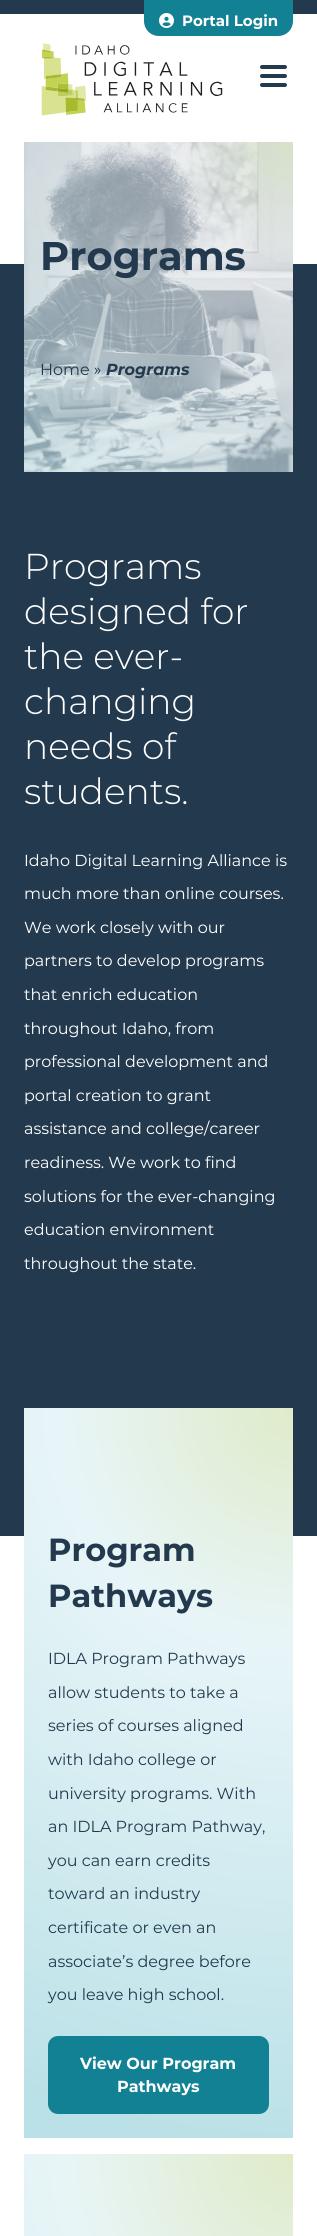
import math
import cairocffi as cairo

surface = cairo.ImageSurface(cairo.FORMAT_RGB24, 317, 2236)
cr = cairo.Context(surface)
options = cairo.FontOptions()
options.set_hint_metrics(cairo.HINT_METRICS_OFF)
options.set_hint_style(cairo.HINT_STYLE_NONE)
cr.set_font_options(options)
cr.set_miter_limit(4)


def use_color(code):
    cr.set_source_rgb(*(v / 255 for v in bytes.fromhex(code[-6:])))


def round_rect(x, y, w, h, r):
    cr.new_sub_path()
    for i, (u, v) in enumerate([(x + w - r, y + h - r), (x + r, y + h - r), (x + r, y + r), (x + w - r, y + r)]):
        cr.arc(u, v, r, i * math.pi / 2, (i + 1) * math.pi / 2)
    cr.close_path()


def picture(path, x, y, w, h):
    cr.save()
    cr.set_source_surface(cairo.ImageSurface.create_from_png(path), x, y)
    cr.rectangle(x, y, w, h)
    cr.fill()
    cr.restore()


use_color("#ffffff")
cr.paint()
use_color("#23394e")
cr.rectangle(0, 0, 317, 14)
cr.fill()
use_color("#138194")
cr.new_path()
cr.move_to(144, -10)
cr.line_to(293, -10)
cr.line_to(293, 21)
cr.curve_to(293, 29.5, 286.5, 36, 278, 36)
cr.line_to(159, 36)
cr.curve_to(150.5, 36, 144, 29.5, 144, 21)
cr.close_path()
cr.fill()
picture("img1.png", 159, 13, 15, 15)
cr.select_font_face("Montserrat", cairo.FONT_SLANT_NORMAL, cairo.FONT_WEIGHT_BOLD)
cr.set_font_size(15)
use_color("#ffffff")
cr.move_to(182, 26)
cr.show_text("Portal Login")
picture("img2.png", 41, 43, 182, 73)
use_color("#23394e")
round_rect(260, 65, 27, 4, 2)
cr.fill()
round_rect(260, 74, 27, 4, 2)
cr.fill()
round_rect(260, 83, 27, 4, 2)
cr.fill()
cr.rectangle(0, 264, 317, 1272)
cr.fill()
picture("img3.png", 24, 142, 269, 330)
cr.set_font_size(40)
cr.move_to(40, 270)
cr.show_text("Programs")
cr.select_font_face("Montserrat")
cr.set_font_size(16)
cr.move_to(40, 375)
cr.show_text("Home »")
cr.select_font_face("Montserrat", cairo.FONT_SLANT_ITALIC, cairo.FONT_WEIGHT_BOLD)
cr.move_to(106, 375)
cr.show_text("Programs")
cr.select_font_face("Montserrat Light")
cr.set_font_size(36)
use_color("#ffffff")
cr.move_to(24, 579)
cr.show_text("Programs")
cr.move_to(24, 624)
cr.show_text("designed for")
cr.move_to(24, 669)
cr.show_text("the ever-")
cr.move_to(24, 714)
cr.show_text("changing")
cr.move_to(24, 759)
cr.show_text("needs of")
cr.move_to(24, 804)
cr.show_text("students.")
cr.select_font_face("Montserrat")
cr.set_font_size(16)
cr.move_to(24, 866)
cr.show_text("Idaho Digital Learning Alliance is")
cr.move_to(24, 899)
cr.show_text("much more than online courses.")
cr.move_to(24, 933)
cr.show_text("We work closely with our")
cr.move_to(24, 966)
cr.show_text("partners to develop programs")
cr.move_to(24, 1000)
cr.show_text("that enrich education")
cr.move_to(24, 1034)
cr.show_text("throughout Idaho, from")
cr.move_to(24, 1067)
cr.show_text("professional development and")
cr.move_to(24, 1101)
cr.show_text("portal creation to grant")
cr.move_to(24, 1134)
cr.show_text("assistance and college/career")
cr.move_to(24, 1168)
cr.show_text("readiness. We work to find")
cr.move_to(24, 1202)
cr.show_text("solutions for the ever-changing")
cr.move_to(24, 1235)
cr.show_text("education environment")
cr.move_to(24, 1269)
cr.show_text("throughout the state.")
gradient = cairo.RadialGradient(293, 1408, 0, 293, 1408, 778)
gradient.add_color_stop_rgba(0, 0.875, 0.922, 0.788, 1)
gradient.add_color_stop_rgba(0.3, 0.91, 0.961, 0.973, 1)
gradient.add_color_stop_rgba(0.95, 0.729, 0.882, 0.906, 1)
cr.set_source(gradient)
cr.rectangle(24, 1408, 269, 730)
cr.fill()
cr.select_font_face("Montserrat", cairo.FONT_SLANT_NORMAL, cairo.FONT_WEIGHT_BOLD)
cr.set_font_size(32)
use_color("#23394e")
cr.move_to(48, 1561)
cr.show_text("Program")
cr.move_to(48, 1607)
cr.show_text("Pathways")
cr.select_font_face("Montserrat")
cr.set_font_size(16)
cr.move_to(48, 1664)
cr.show_text("IDLA Program Pathways")
cr.move_to(48, 1698)
cr.show_text("allow students to take a")
cr.move_to(48, 1731)
cr.show_text("series of courses aligned")
cr.move_to(48, 1765)
cr.show_text("with Idaho college or")
cr.move_to(48, 1799)
cr.show_text("university programs. With")
cr.move_to(48, 1832)
cr.show_text("an IDLA Program Pathway,")
cr.move_to(48, 1866)
cr.show_text("you can earn credits")
cr.move_to(48, 1899)
cr.show_text("toward an industry")
cr.move_to(48, 1933)
cr.show_text("certificate or even an")
cr.move_to(48, 1967)
cr.show_text("associate’s degree before")
cr.move_to(48, 2000)
cr.show_text("you leave high school.")
use_color("#138194")
round_rect(48, 2036, 221, 78, 10)
cr.fill()
cr.select_font_face("Montserrat", cairo.FONT_SLANT_NORMAL, cairo.FONT_WEIGHT_BOLD)
use_color("#ffffff")
cr.move_to(80, 2069)
cr.show_text("View Our Program")
cr.move_to(117, 2092)
cr.show_text("Pathways")
gradient = cairo.RadialGradient(293, 2154, 0, 293, 2154, 768)
gradient.add_color_stop_rgba(0, 0.875, 0.922, 0.784, 1)
gradient.add_color_stop_rgba(0.3, 0.91, 0.961, 0.969, 1)
gradient.add_color_stop_rgba(0.95, 0.725, 0.878, 0.906, 1)
cr.set_source(gradient)
cr.rectangle(24, 2154, 269, 82)
cr.fill()
surface.write_to_png("result.png")
